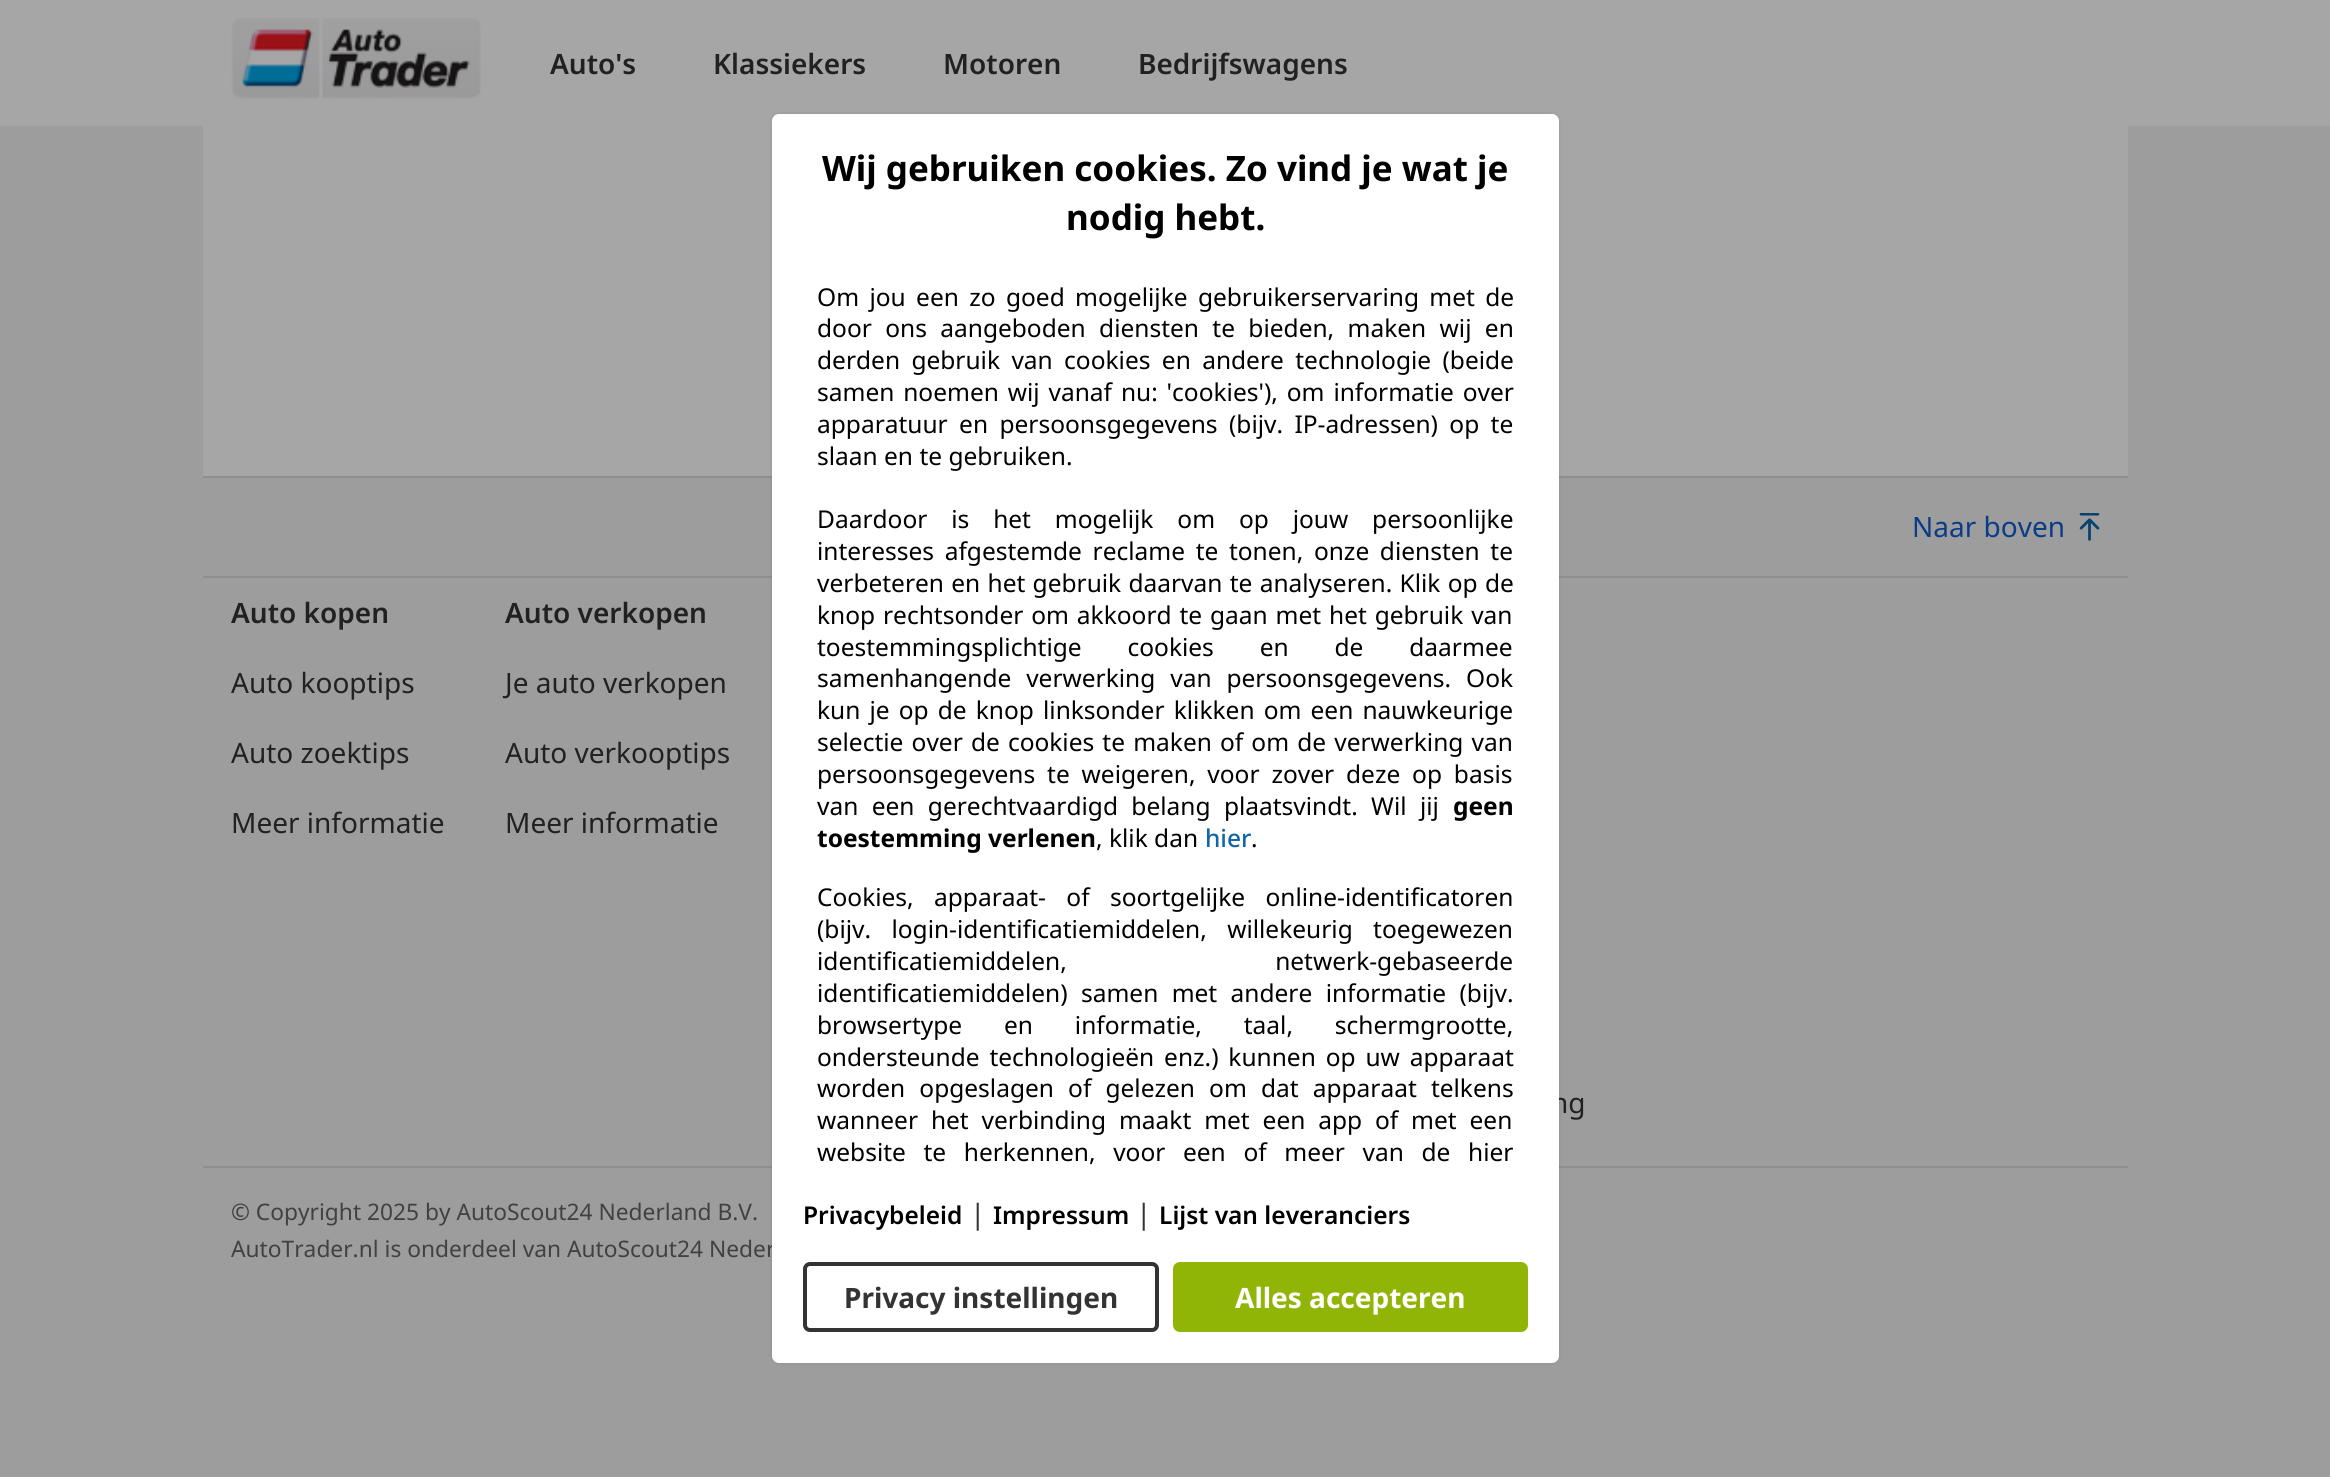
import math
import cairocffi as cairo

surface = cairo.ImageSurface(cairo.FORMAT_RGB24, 2330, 1477)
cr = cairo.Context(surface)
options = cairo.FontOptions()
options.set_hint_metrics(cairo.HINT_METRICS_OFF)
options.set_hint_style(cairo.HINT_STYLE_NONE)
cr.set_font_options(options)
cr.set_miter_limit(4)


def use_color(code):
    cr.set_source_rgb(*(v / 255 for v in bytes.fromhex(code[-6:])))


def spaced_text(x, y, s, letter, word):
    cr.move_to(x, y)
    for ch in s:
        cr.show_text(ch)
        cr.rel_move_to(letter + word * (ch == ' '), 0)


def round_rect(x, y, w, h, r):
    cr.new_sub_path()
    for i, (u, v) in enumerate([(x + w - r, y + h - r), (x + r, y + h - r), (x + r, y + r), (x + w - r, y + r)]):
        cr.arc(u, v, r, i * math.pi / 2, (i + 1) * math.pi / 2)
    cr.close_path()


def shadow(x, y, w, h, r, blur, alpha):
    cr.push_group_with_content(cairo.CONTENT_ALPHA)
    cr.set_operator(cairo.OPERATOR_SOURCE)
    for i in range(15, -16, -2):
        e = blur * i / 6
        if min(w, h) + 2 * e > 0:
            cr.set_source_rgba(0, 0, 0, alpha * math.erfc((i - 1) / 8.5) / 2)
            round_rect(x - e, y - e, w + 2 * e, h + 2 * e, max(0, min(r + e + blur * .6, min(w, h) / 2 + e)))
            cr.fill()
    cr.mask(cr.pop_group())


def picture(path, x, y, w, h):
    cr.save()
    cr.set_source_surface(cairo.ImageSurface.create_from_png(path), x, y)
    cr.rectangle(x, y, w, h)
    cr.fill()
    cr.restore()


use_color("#9d9d9d")
cr.paint()
use_color("#a6a6a6")
cr.rectangle(0, 0, 2330, 126)
cr.fill()
picture("img1.png", 231, 18, 250, 81)
cr.select_font_face("Noto Sans SemiBold")
cr.set_font_size(28)
use_color("#212121")
cr.move_to(550, 74)
cr.show_text("Auto's")
cr.move_to(713, 74)
cr.show_text("Klassiekers")
cr.move_to(943, 74)
cr.show_text("Motoren")
cr.move_to(1138, 74)
cr.show_text("Bedrijfswagens")
use_color("#a6a6a6")
cr.rectangle(203, 126, 1925, 350)
cr.fill()
use_color("#8f8f8f")
cr.rectangle(203, 476, 1925, 2)
cr.fill()
cr.select_font_face("Noto Sans")
use_color("#0a3c89")
cr.move_to(1912, 537)
cr.show_text("Naar boven")
picture("img2.png", 2079, 513, 21, 28)
use_color("#8f8f8f")
cr.rectangle(203, 576, 1925, 2)
cr.fill()
cr.select_font_face("Noto Sans SemiBold")
use_color("#212121")
cr.move_to(231, 623)
cr.show_text("Auto kopen")
cr.select_font_face("Noto Sans")
cr.move_to(231, 693)
cr.show_text("Auto kooptips")
cr.move_to(231, 763)
cr.show_text("Auto zoektips")
cr.move_to(231, 833)
cr.show_text("Meer informatie")
cr.select_font_face("Noto Sans SemiBold")
cr.move_to(505, 623)
cr.show_text("Auto verkopen")
cr.select_font_face("Noto Sans")
cr.move_to(505, 693)
cr.show_text("Je auto verkopen")
cr.move_to(505, 763)
cr.show_text("Auto verkooptips")
cr.move_to(505, 833)
cr.show_text("Meer informatie")
cr.move_to(1551, 1113)
cr.show_text("ng")
use_color("#8f8f8f")
cr.rectangle(203, 1166, 1925, 2)
cr.fill()
cr.set_font_size(22.75)
use_color("#414141")
cr.move_to(231, 1220)
cr.show_text("© Copyright 2025 by AutoScout24 Nederland B.V.")
cr.move_to(231, 1257)
cr.show_text("AutoTrader.nl is onderdeel van AutoScout24 Neder")
use_color("#000000")
shadow(772, 114, 787, 1249, 7, 2, 0.12)
use_color("#ffffff")
round_rect(772, 114, 787, 1249, 7)
cr.fill()
cr.select_font_face("Noto Sans", cairo.FONT_SLANT_NORMAL, cairo.FONT_WEIGHT_BOLD)
cr.set_font_size(35)
use_color("#000000")
cr.move_to(822, 181)
cr.show_text("Wij gebruiken cookies. Zo vind je wat je")
cr.move_to(1066, 230)
cr.show_text("nodig hebt.")
cr.select_font_face("Noto Sans")
cr.set_font_size(24.5)
spaced_text(817, 306, "Om jou een zo goed mogelijke gebruikerservaring met de", 0, 4)
spaced_text(817, 337, "door ons aangeboden diensten te bieden, maken wij en", 0, 7)
spaced_text(817, 369, "derden gebruik van cookies en andere technologie (beide", 0, 5)
spaced_text(817, 401, "samen noemen wij vanaf nu: 'cookies'), om informatie over", 0, 2.5)
spaced_text(817, 433, "apparatuur en persoonsgegevens (bijv. IP-adressen) op te", 0, 5)
cr.move_to(817, 465)
cr.show_text("slaan en te gebruiken.")
spaced_text(817, 528, "Daardoor is het mogelijk om op jouw persoonlijke", 0, 17.5)
spaced_text(817, 560, "interesses afgestemde reclame te tonen, onze diensten te", 0, 4.25)
spaced_text(817, 592, "verbeteren en het gebruik daarvan te analyseren. Klik op de", 0, 0.9)
spaced_text(817, 624, "knop rechtsonder om akkoord te gaan met het gebruik van", 0, 1.5)
spaced_text(817, 656, "toestemmingsplichtige cookies en de daarmee", 0, 39.5)
spaced_text(817, 687, "samenhangende verwerking van persoonsgegevens. Ook", 0, 8.5)
spaced_text(817, 719, "kun je op de knop linksonder klikken om een nauwkeurige", 0, 2.75)
spaced_text(817, 751, "selectie over de cookies te maken of om de verwerking van", 0, 1.75)
spaced_text(817, 783, "persoonsgegevens te weigeren, voor zover deze op basis", 0, 5.5)
spaced_text(817, 815, "van een gerechtvaardigd belang plaatsvindt. Wil jij", 0, 7)
cr.select_font_face("Noto Sans", cairo.FONT_SLANT_NORMAL, cairo.FONT_WEIGHT_BOLD)
cr.move_to(1453, 815)
cr.show_text("geen")
cr.move_to(817, 847)
cr.show_text("toestemming verlenen")
cr.select_font_face("Noto Sans")
cr.move_to(1096, 847)
cr.show_text(", klik dan")
cr.select_font_face("Noto Sans Medium")
use_color("#1166a8")
cr.move_to(1205, 847)
cr.show_text("hier")
cr.select_font_face("Noto Sans")
use_color("#000000")
cr.move_to(1251, 847)
cr.show_text(".")
spaced_text(817, 906, "Cookies, apparaat- of soortgelijke online-identificatoren", 0, 14)
spaced_text(817, 938, "(bijv. login-identificatiemiddelen, willekeurig toegewezen", 0, 14)
spaced_text(817, 970, "identificatiemiddelen, netwerk-gebaseerde", 0, 202)
spaced_text(817, 1002, "identificatiemiddelen) samen met andere informatie (bijv.", 0, 7)
spaced_text(817, 1034, "browsertype en informatie, taal, schermgrootte,", 0, 35.5)
spaced_text(817, 1066, "ondersteunde technologieën enz.) kunnen op uw apparaat", 0, 3.5)
spaced_text(817, 1097, "worden opgeslagen of gelezen om dat apparaat telkens", 0, 7.75)
spaced_text(817, 1129, "wanneer het verbinding maakt met een app of met een", 0, 6.5)
spaced_text(817, 1161, "website te herkennen, voor een of meer van de hier", 0, 11.25)
cr.select_font_face("Noto Sans SemiBold")
cr.move_to(803, 1224)
cr.show_text("Privacybeleid")
cr.select_font_face("Noto Sans")
cr.set_font_size(28)
use_color("#333333")
cr.move_to(970, 1224)
cr.show_text("|")
cr.select_font_face("Noto Sans SemiBold")
cr.set_font_size(24.5)
use_color("#000000")
cr.move_to(993, 1224)
cr.show_text("Impressum")
cr.select_font_face("Noto Sans")
cr.set_font_size(28)
use_color("#333333")
cr.move_to(1136, 1224)
cr.show_text("|")
cr.select_font_face("Noto Sans SemiBold")
cr.set_font_size(24.5)
use_color("#000000")
cr.move_to(1159, 1224)
cr.show_text("Lijst van leveranciers")
round_rect(805, 1264, 352, 66, 5)
use_color("#333333")
cr.set_line_width(4)
cr.stroke()
cr.select_font_face("Noto Sans", cairo.FONT_SLANT_NORMAL, cairo.FONT_WEIGHT_BOLD)
cr.set_font_size(28)
cr.move_to(844, 1308)
cr.show_text("Privacy instellingen")
use_color("#91b506")
round_rect(1173, 1262, 355, 70, 7)
cr.fill()
use_color("#ffffff")
cr.move_to(1235, 1308)
cr.show_text("Alles accepteren")
surface.write_to_png("result.png")
